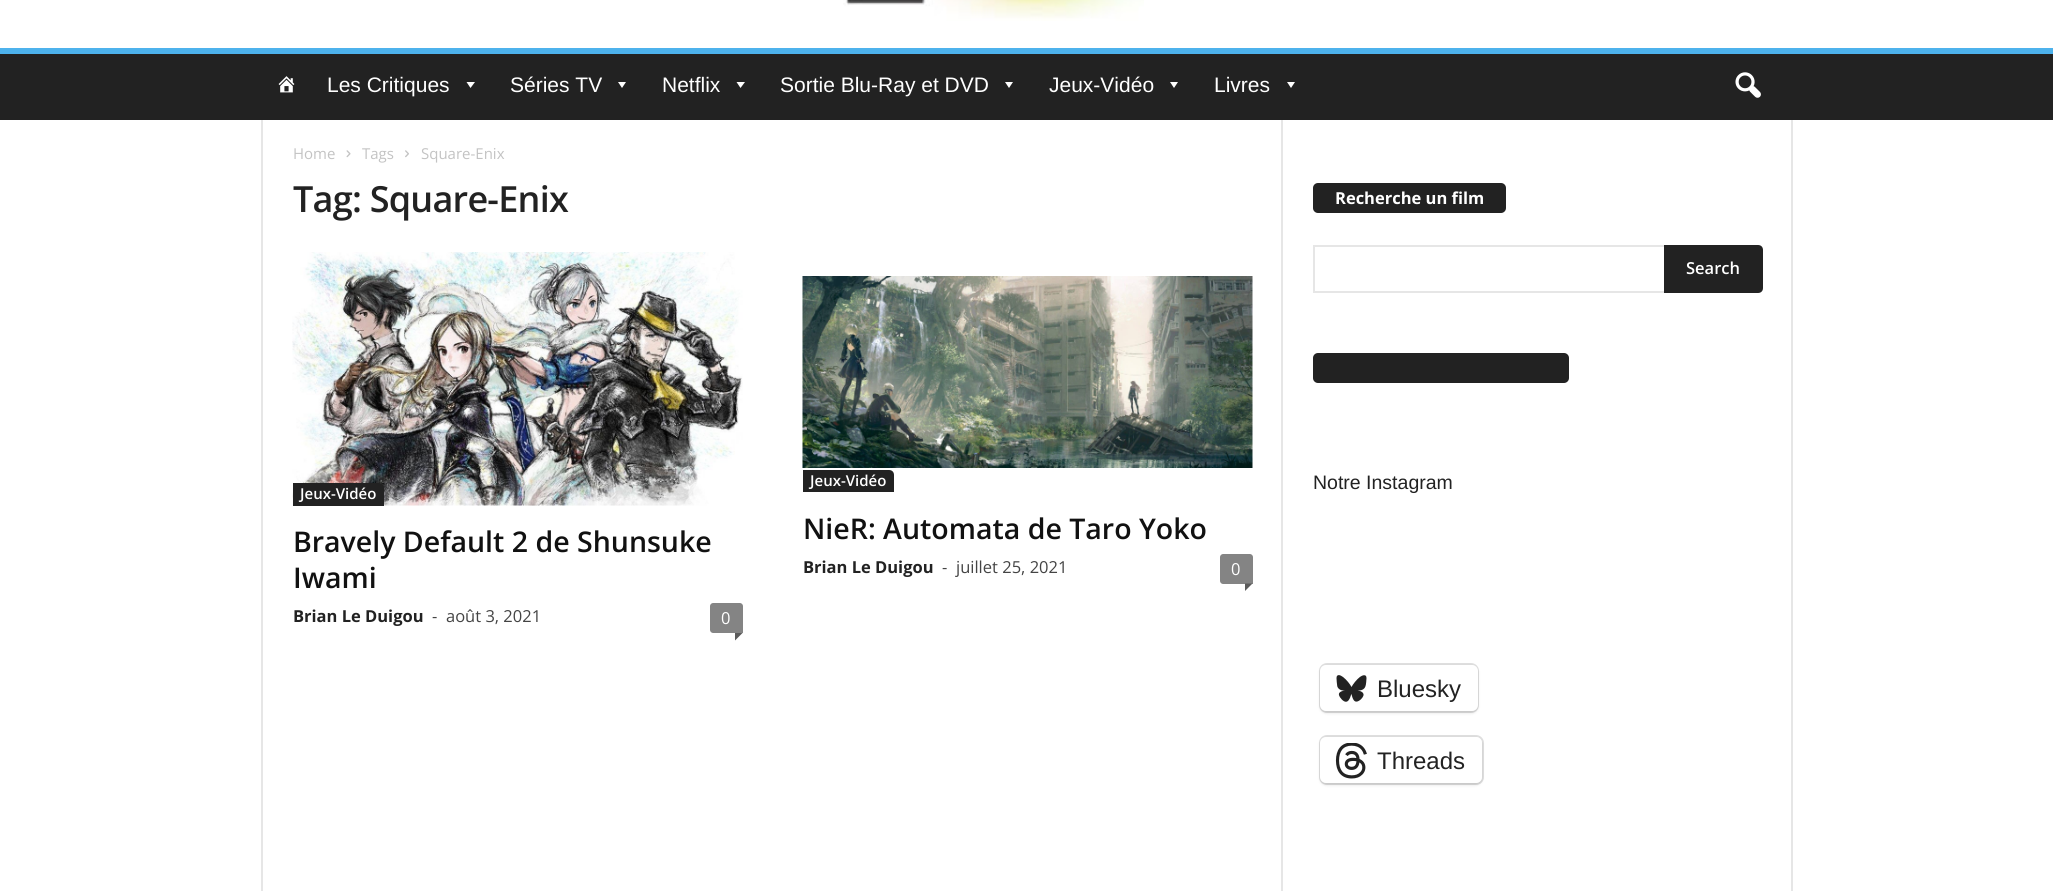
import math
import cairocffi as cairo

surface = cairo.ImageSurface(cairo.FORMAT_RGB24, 2053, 891)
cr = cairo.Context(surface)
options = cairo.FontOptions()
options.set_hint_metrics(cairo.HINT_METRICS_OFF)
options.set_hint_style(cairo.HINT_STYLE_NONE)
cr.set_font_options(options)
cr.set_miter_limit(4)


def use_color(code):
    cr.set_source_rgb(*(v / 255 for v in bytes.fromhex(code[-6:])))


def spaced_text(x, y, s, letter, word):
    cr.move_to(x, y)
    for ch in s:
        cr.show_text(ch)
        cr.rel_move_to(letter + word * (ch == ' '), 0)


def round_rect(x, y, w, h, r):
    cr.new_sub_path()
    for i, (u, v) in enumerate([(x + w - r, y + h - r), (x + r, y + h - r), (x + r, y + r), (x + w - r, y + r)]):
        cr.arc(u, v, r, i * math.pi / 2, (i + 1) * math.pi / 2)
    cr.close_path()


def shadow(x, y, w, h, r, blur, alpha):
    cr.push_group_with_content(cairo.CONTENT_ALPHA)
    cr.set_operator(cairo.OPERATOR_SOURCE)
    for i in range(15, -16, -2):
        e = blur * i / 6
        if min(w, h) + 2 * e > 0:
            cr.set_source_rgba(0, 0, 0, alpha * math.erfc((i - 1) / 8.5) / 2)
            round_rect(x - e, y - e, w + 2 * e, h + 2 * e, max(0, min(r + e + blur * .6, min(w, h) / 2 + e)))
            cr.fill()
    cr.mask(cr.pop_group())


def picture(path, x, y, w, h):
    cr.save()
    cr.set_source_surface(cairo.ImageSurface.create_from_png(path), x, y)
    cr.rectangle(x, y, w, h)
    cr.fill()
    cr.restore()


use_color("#ffffff")
cr.paint()
picture("img1.png", 843, 0, 301, 21)
use_color("#222222")
cr.rectangle(0, 54, 2053, 66)
cr.fill()
use_color("#4db2ec")
cr.rectangle(0, 48, 2053, 6)
cr.fill()
picture("img2.png", 278, 76, 17, 17)
cr.select_font_face("Liberation Sans")
cr.set_font_size(21)
use_color("#ffffff")
cr.move_to(327, 92)
cr.show_text("Les Critiques")
cr.new_path()
cr.move_to(475, 82)
cr.line_to(470.5, 88)
cr.line_to(466.5, 82)
cr.close_path()
cr.fill()
cr.move_to(510, 92)
cr.show_text("Séries TV")
cr.new_path()
cr.move_to(626, 82)
cr.line_to(622, 88)
cr.line_to(618, 82)
cr.close_path()
cr.fill()
cr.move_to(662, 92)
cr.show_text("Netflix")
cr.new_path()
cr.move_to(745, 82)
cr.line_to(740.5, 88)
cr.line_to(736.5, 82)
cr.close_path()
cr.fill()
cr.move_to(780, 92)
cr.show_text("Sortie Blu-Ray et DVD")
cr.new_path()
cr.move_to(1013, 82)
cr.line_to(1009, 88)
cr.line_to(1005, 82)
cr.close_path()
cr.fill()
cr.move_to(1049, 92)
cr.show_text("Jeux-Vidéo")
cr.new_path()
cr.move_to(1178, 82)
cr.line_to(1174, 88)
cr.line_to(1170, 82)
cr.close_path()
cr.fill()
cr.move_to(1214, 92)
cr.show_text("Livres")
cr.new_path()
cr.move_to(1295, 82)
cr.line_to(1291, 88)
cr.line_to(1287, 82)
cr.close_path()
cr.fill()
picture("img3.png", 1735, 72, 26, 26)
use_color("#e6e6e6")
cr.rectangle(261, 120, 2, 771)
cr.fill()
cr.select_font_face("Open Sans")
cr.set_font_size(15)
use_color("#c3c3c3")
cr.move_to(293, 159)
cr.show_text("Home")
picture("img4.png", 346, 150, 5, 8)
cr.move_to(362, 159)
cr.show_text("Tags")
picture("img5.png", 405, 150, 4, 8)
cr.move_to(421, 159)
cr.show_text("Square-Enix")
cr.select_font_face("Open Sans SemiBold")
cr.set_font_size(36)
use_color("#222222")
spaced_text(293, 212, "Tag: Square-Enix", -0.75, 0)
picture("img6.png", 292, 252, 451, 254)
cr.new_path()
cr.move_to(293, 483)
cr.line_to(379, 483)
cr.curve_to(382, 483, 384, 485, 384, 488)
cr.line_to(384, 506)
cr.line_to(293, 506)
cr.close_path()
cr.fill()
cr.set_font_size(15)
use_color("#ffffff")
cr.move_to(300, 499)
cr.show_text("Jeux-Vidéo")
cr.set_font_size(28.5)
use_color("#111111")
cr.move_to(293, 552)
cr.show_text("Bravely Default 2 de Shunsuke")
cr.move_to(293, 588)
cr.show_text("Iwami")
cr.select_font_face("Open Sans", cairo.FONT_SLANT_NORMAL, cairo.FONT_WEIGHT_BOLD)
cr.set_font_size(16.5)
use_color("#222222")
cr.move_to(293, 622)
cr.show_text("Brian Le Duigou")
cr.select_font_face("Open Sans")
use_color("#444444")
cr.move_to(432, 622)
cr.show_text("-")
cr.move_to(446, 622)
cr.show_text("août 3, 2021")
use_color("#848484")
cr.new_path()
cr.move_to(713, 603)
cr.line_to(740, 603)
cr.curve_to(741.5, 603, 743, 604.5, 743, 606)
cr.line_to(743, 633)
cr.line_to(713, 633)
cr.curve_to(711.5, 633, 710, 631.5, 710, 630)
cr.line_to(710, 606)
cr.curve_to(710, 604.5, 711.5, 603, 713, 603)
cr.close_path()
cr.fill()
use_color("#ffffff")
cr.move_to(721, 624)
cr.show_text("0")
use_color("#5b5b5b")
cr.new_path()
cr.move_to(735, 633)
cr.line_to(742.5, 633)
cr.line_to(735, 640.5)
cr.close_path()
cr.fill()
picture("img7.png", 802, 276, 451, 192)
use_color("#222222")
cr.new_path()
cr.move_to(803, 470)
cr.line_to(889, 470)
cr.curve_to(892, 470, 894, 472, 894, 475)
cr.line_to(894, 492)
cr.line_to(803, 492)
cr.close_path()
cr.fill()
cr.select_font_face("Open Sans SemiBold")
cr.set_font_size(15)
use_color("#ffffff")
cr.move_to(810, 486)
cr.show_text("Jeux-Vidéo")
cr.set_font_size(28.5)
use_color("#111111")
cr.move_to(803, 539)
cr.show_text("NieR: Automata de Taro Yoko")
cr.select_font_face("Open Sans", cairo.FONT_SLANT_NORMAL, cairo.FONT_WEIGHT_BOLD)
cr.set_font_size(16.5)
use_color("#222222")
cr.move_to(803, 573)
cr.show_text("Brian Le Duigou")
cr.select_font_face("Open Sans")
use_color("#444444")
cr.move_to(942, 573)
cr.show_text("-")
cr.move_to(956, 573)
cr.show_text("juillet 25, 2021")
use_color("#848484")
cr.new_path()
cr.move_to(1223, 554)
cr.line_to(1250, 554)
cr.curve_to(1251.5, 554, 1253, 555.5, 1253, 557)
cr.line_to(1253, 584)
cr.line_to(1223, 584)
cr.curve_to(1221.5, 584, 1220, 582.5, 1220, 581)
cr.line_to(1220, 557)
cr.curve_to(1220, 555.5, 1221.5, 554, 1223, 554)
cr.close_path()
cr.fill()
use_color("#ffffff")
cr.move_to(1231, 575)
cr.show_text("0")
use_color("#5b5b5b")
cr.new_path()
cr.move_to(1245, 583.5)
cr.line_to(1252.5, 583.5)
cr.line_to(1245, 591)
cr.close_path()
cr.fill()
use_color("#e6e6e6")
cr.rectangle(1281, 120, 2, 771)
cr.fill()
use_color("#222222")
round_rect(1313, 183, 193, 30, 5)
cr.fill()
cr.select_font_face("Open Sans", cairo.FONT_SLANT_NORMAL, cairo.FONT_WEIGHT_BOLD)
use_color("#ffffff")
cr.move_to(1335, 204)
cr.show_text("Recherche un film")
use_color("#e6e6e6")
cr.rectangle(1313, 245, 351, 2)
cr.fill()
cr.rectangle(1313, 291, 351, 2)
cr.fill()
cr.rectangle(1313, 245, 2, 48)
cr.fill()
use_color("#222222")
cr.new_path()
cr.move_to(1664, 245)
cr.line_to(1758, 245)
cr.curve_to(1761, 245, 1763, 247, 1763, 250)
cr.line_to(1763, 288)
cr.curve_to(1763, 291, 1761, 293, 1758, 293)
cr.line_to(1664, 293)
cr.close_path()
cr.fill()
cr.select_font_face("Open Sans SemiBold")
use_color("#ffffff")
cr.move_to(1686, 274)
cr.show_text("Search")
use_color("#222222")
round_rect(1313, 353, 256, 30, 5)
cr.fill()
cr.select_font_face("Liberation Sans")
cr.set_font_size(19.5)
cr.move_to(1313, 489)
cr.show_text("Notre Instagram")
round_rect(1320, 664, 158, 48, 7)
use_color("#e0e0e0")
cr.stroke()
use_color("#000000")
shadow(1320, 666, 158, 47, 6, 1.5, 0.12)
use_color("#ffffff")
round_rect(1320, 665, 158, 46, 6)
cr.fill()
picture("img8.png", 1336, 675, 31, 27)
cr.set_font_size(24)
use_color("#222222")
cr.move_to(1377, 697)
cr.show_text("Bluesky")
round_rect(1320, 736, 163, 48, 7)
use_color("#e0e0e0")
cr.stroke()
use_color("#000000")
shadow(1320, 738, 162, 47, 6, 1.5, 0.12)
use_color("#ffffff")
round_rect(1320, 737, 162, 46, 6)
cr.fill()
picture("img9.png", 1335, 743, 32, 36)
use_color("#222222")
cr.move_to(1377, 769)
cr.show_text("Threads")
use_color("#e6e6e6")
cr.rectangle(1791, 120, 2, 771)
cr.fill()
surface.write_to_png("result.png")
